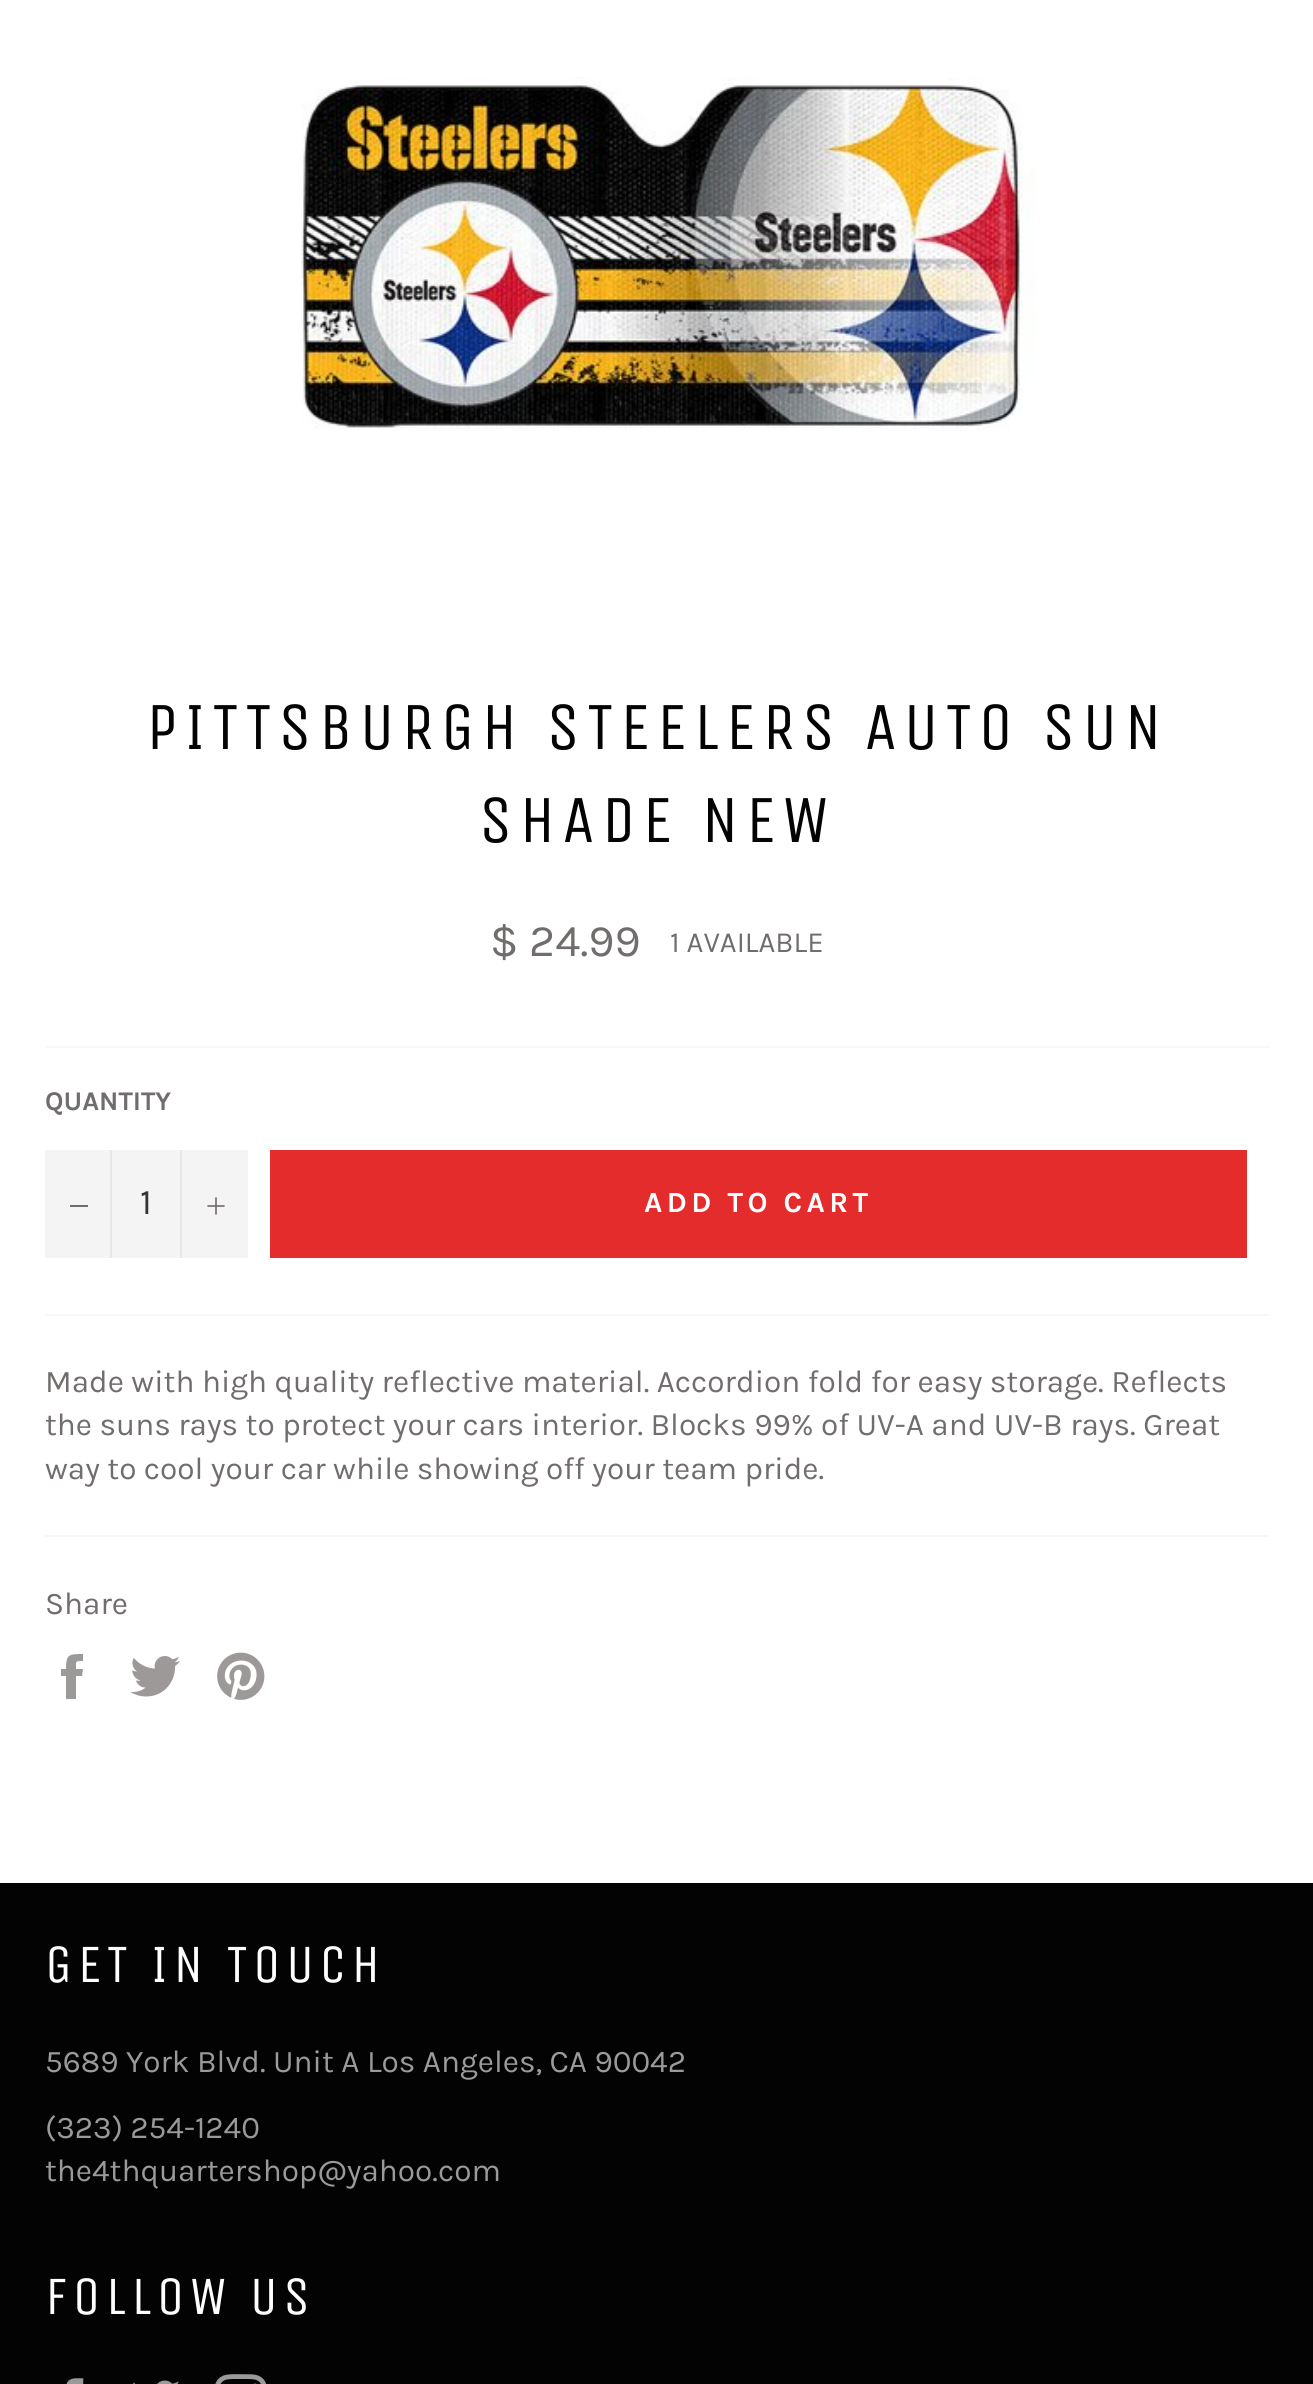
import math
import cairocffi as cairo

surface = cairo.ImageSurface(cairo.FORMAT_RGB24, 1313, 2384)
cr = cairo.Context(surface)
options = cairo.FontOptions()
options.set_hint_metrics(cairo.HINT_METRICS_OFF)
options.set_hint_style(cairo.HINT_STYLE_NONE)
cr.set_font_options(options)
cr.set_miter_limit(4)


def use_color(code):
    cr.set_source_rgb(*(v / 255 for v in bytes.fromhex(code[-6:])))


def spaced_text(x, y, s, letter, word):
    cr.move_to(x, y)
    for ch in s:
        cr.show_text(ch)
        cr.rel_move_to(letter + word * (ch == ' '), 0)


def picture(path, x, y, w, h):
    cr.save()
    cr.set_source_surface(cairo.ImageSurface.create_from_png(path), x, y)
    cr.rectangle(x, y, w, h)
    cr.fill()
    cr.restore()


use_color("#ffffff")
cr.paint()
picture("img1.png", 300, 77, 736, 352)
cr.select_font_face("Unica One")
cr.set_font_size(67.5)
use_color("#030303")
spaced_text(146, 749, "PITTSBURGH STEELERS AUTO SUN", 6.75, 0)
spaced_text(479, 842, "SHADE NEW", 6.75, 0)
cr.select_font_face("Karla")
cr.set_font_size(45)
use_color("#726d6d")
cr.move_to(490, 956)
cr.show_text("$ 24.99")
cr.set_font_size(29.25)
cr.move_to(670, 952)
cr.show_text("1 AVAILABLE")
use_color("#f7f7f7")
cr.rectangle(45, 1046, 1224, 2)
cr.fill()
cr.select_font_face("Karla", cairo.FONT_SLANT_NORMAL, cairo.FONT_WEIGHT_BOLD)
cr.set_font_size(27)
use_color("#726d6d")
cr.move_to(45, 1110)
cr.show_text("QUANTITY")
use_color("#f4f4f4")
cr.rectangle(45, 1150, 203, 108)
cr.fill()
use_color("#e7e7e7")
cr.rectangle(110, 1150, 2, 108)
cr.fill()
use_color("#726d6d")
cr.rectangle(70, 1205, 18, 2)
cr.fill()
cr.select_font_face("Karla")
cr.set_font_size(36)
use_color("#333333")
cr.move_to(140, 1214)
cr.show_text("1")
use_color("#e7e7e7")
cr.rectangle(180, 1150, 2, 108)
cr.fill()
picture("img2.png", 207, 1197, 18, 18)
use_color("#e32c2b")
cr.rectangle(270, 1150, 977, 108)
cr.fill()
cr.select_font_face("Karla", cairo.FONT_SLANT_NORMAL, cairo.FONT_WEIGHT_BOLD)
cr.set_font_size(29.25)
use_color("#ffffff")
spaced_text(644, 1212, "ADD TO CART", 4.4, 0)
use_color("#f7f7f7")
cr.rectangle(45, 1314, 1224, 2)
cr.fill()
cr.select_font_face("Karla")
cr.set_font_size(31.5)
use_color("#726d6d")
cr.move_to(45, 1392)
cr.show_text("Made with high quality reflective material. Accordion fold for easy storage. Reflects")
cr.move_to(45, 1435)
cr.show_text("the suns rays to protect your cars interior. Blocks 99% of UV-A and UV-B rays. Great")
cr.move_to(45, 1479)
cr.show_text("way to cool your car while showing off your team pride.")
use_color("#f7f7f7")
cr.rectangle(45, 1535, 1224, 2)
cr.fill()
use_color("#726d6d")
cr.move_to(45, 1614)
cr.show_text("Share")
use_color("#9c9999")
cr.new_path()
cr.move_to(76, 1669)
cr.curve_to(76, 1661, 75, 1661, 83, 1661)
cr.line_to(83, 1654)
cr.curve_to(69, 1654, 66, 1654, 66, 1669)
cr.line_to(61, 1669)
cr.line_to(61, 1676)
cr.line_to(66, 1676)
cr.line_to(66, 1699)
cr.line_to(76, 1699)
cr.line_to(76, 1676)
cr.line_to(82, 1676)
cr.line_to(83, 1669)
cr.close_path()
cr.fill()
picture("img3.png", 130, 1656, 50, 41)
picture("img4.png", 217, 1652, 48, 48)
use_color("#030303")
cr.rectangle(0, 1883, 1313, 501)
cr.fill()
cr.select_font_face("Unica One")
cr.set_font_size(54)
use_color("#ffffff")
spaced_text(45, 1982, "GET IN TOUCH", 5.4, 0)
cr.select_font_face("Karla")
cr.set_font_size(31.5)
use_color("#9a9a9a")
cr.move_to(45, 2072)
cr.show_text("5689 York Blvd. Unit A Los Angeles, CA 90042")
cr.move_to(45, 2138)
cr.show_text("(323) 254-1240")
cr.move_to(45, 2181)
cr.show_text("the4thquartershop@yahoo.com")
cr.select_font_face("Unica One")
cr.set_font_size(54)
use_color("#ffffff")
spaced_text(45, 2314, "FOLLOW US", 5.4, 0)
picture("img5.png", 66, 2378, 18, 6)
picture("img6.png", 133, 2380, 46, 4)
picture("img7.png", 215, 2374, 51, 10)
surface.write_to_png("result.png")
